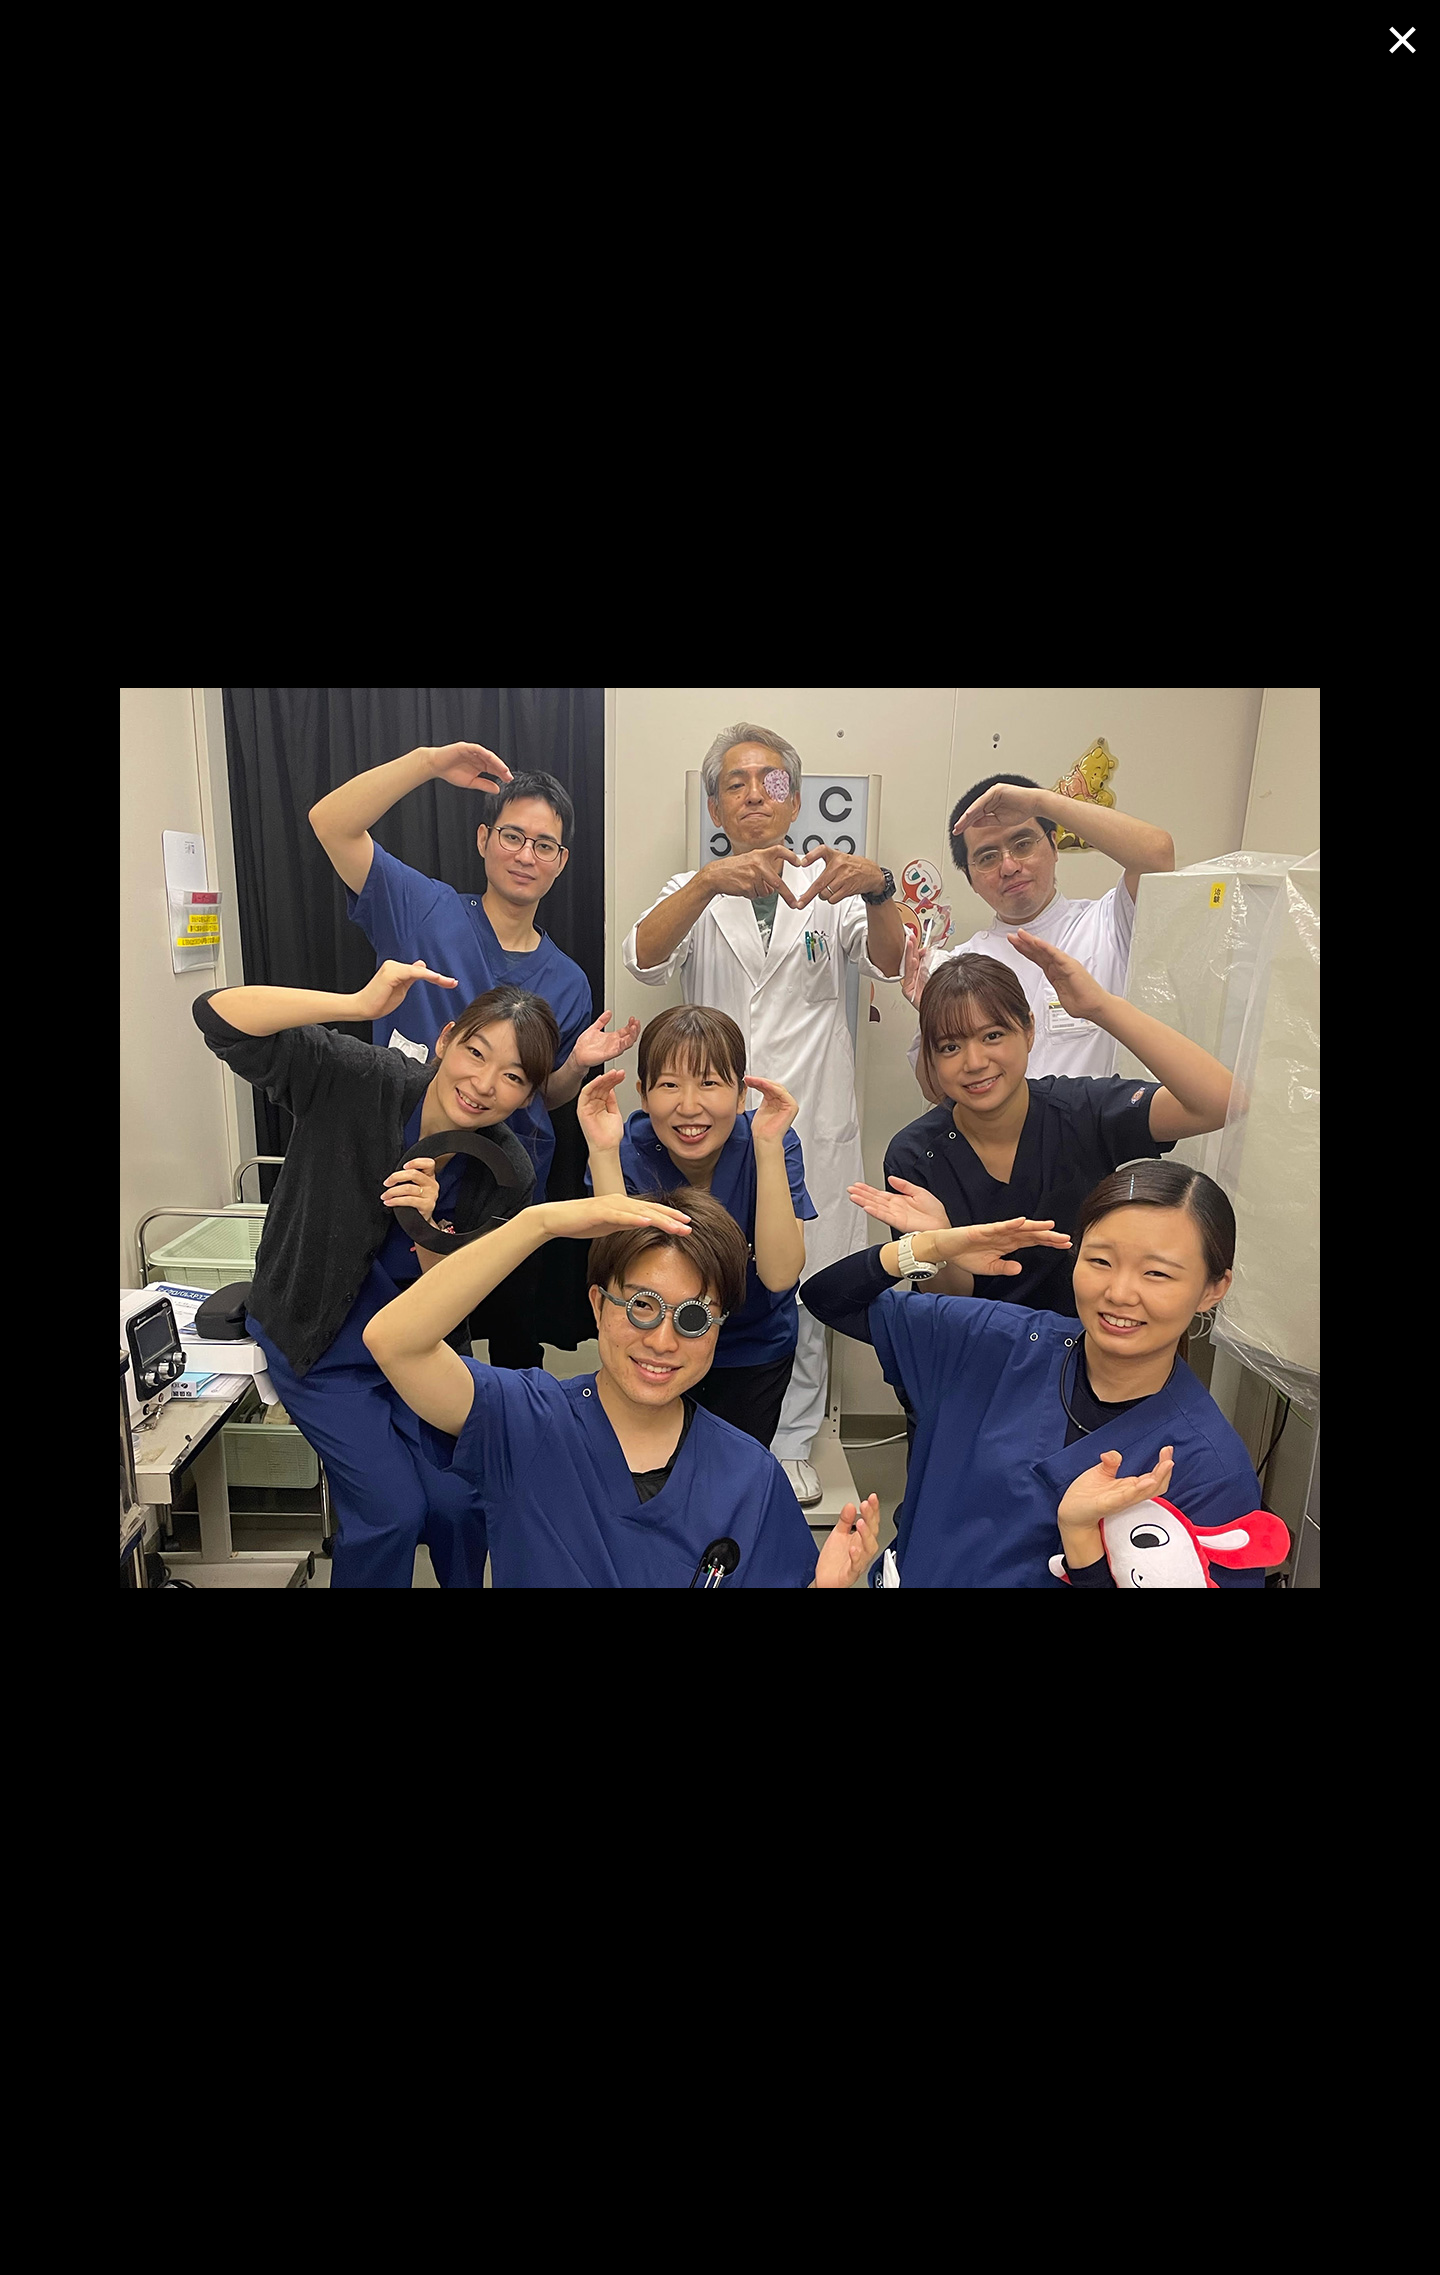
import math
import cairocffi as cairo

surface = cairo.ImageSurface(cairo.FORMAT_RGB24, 1440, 2275)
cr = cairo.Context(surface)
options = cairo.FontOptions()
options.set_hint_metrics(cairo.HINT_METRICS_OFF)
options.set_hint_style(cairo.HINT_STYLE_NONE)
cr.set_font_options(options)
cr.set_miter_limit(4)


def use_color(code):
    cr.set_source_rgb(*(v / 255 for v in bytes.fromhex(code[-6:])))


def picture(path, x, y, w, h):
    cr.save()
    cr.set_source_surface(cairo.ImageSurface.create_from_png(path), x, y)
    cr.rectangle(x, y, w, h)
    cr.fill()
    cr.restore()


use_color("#000000")
cr.paint()
cr.select_font_face("Liberation Sans")
cr.set_font_size(60)
use_color("#ffffff")
cr.move_to(1385, 60)
cr.show_text("×")
picture("img1.png", 120, 688, 1200, 900)
surface.write_to_png("result.png")
